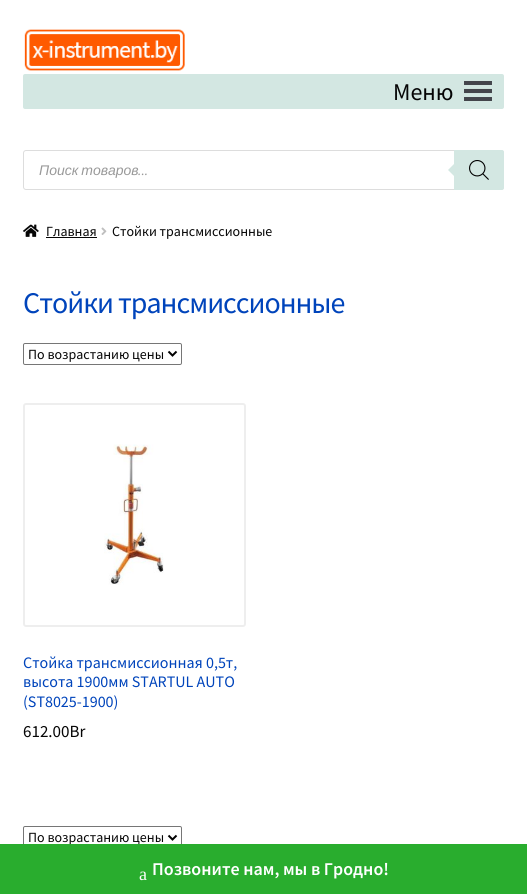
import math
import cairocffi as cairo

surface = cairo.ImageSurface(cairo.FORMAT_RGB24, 527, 894)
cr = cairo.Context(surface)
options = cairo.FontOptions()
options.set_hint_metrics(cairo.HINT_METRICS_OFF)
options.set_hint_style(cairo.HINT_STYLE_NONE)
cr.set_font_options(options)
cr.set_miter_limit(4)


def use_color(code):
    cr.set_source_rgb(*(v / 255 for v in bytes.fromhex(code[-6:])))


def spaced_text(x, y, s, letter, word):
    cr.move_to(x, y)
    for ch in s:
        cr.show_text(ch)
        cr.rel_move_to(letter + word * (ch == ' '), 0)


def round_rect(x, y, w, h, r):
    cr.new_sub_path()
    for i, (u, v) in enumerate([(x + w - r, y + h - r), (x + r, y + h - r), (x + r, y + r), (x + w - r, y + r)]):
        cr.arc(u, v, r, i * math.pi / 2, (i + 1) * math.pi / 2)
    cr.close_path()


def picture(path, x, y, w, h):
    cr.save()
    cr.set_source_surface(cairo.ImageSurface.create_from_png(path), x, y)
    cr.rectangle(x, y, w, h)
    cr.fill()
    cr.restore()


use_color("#ffffff")
cr.paint()
picture("img1.png", 24, 29, 161, 42)
use_color("#d3e7e2")
round_rect(23, 74, 481, 35, 2)
cr.fill()
cr.select_font_face("Source Sans Pro")
cr.set_font_size(24)
use_color("#050505")
cr.move_to(393, 100)
cr.show_text("Меню")
picture("img2.png", 464, 81, 28, 20)
round_rect(23.5, 150.5, 480, 39, 2.5)
use_color("#dddddd")
cr.set_line_width(1)
cr.stroke()
cr.select_font_face("Liberation Sans", cairo.FONT_SLANT_ITALIC)
cr.set_font_size(14)
use_color("#999999")
spaced_text(39, 175, "Поиск товаров", 0, -1)
cr.select_font_face("Source Sans Pro", cairo.FONT_SLANT_ITALIC)
cr.move_to(138, 175)
cr.show_text("...")
use_color("#d3e7e2")
cr.new_path()
cr.move_to(454, 150)
cr.line_to(502, 150)
cr.curve_to(503, 150, 504, 151, 504, 152)
cr.line_to(504, 188)
cr.curve_to(504, 189, 503, 190, 502, 190)
cr.line_to(454, 190)
cr.close_path()
cr.fill()
cr.new_path()
cr.move_to(456, 162)
cr.line_to(456, 178)
cr.line_to(448, 170)
cr.close_path()
cr.fill()
picture("img3.png", 469, 160, 20, 20)
picture("img4.png", 23, 224, 16, 13)
cr.select_font_face("Source Sans Pro")
use_color("#050505")
cr.move_to(46, 236)
cr.show_text("Главная")
cr.rectangle(46, 237, 51, 1)
cr.fill()
picture("img5.png", 101, 227, 6, 8)
cr.move_to(112, 236)
cr.show_text("Стойки трансмиссионные")
cr.set_font_size(30)
use_color("#0044bb")
spaced_text(23, 313, "Стойки трансмиссионные", -1, 0)
round_rect(23.5, 343.5, 158, 21, 1.5)
use_color("#767676")
cr.stroke()
cr.new_path()
cr.move_to(168.5, 351.5)
cr.line_to(172.5, 355.5)
cr.line_to(176.5, 351.5)
use_color("#000000")
cr.set_line_width(2)
cr.stroke()
cr.set_font_size(14)
use_color("#050505")
cr.move_to(28, 359)
cr.show_text("По возрастанию цены")
round_rect(24, 404, 221, 222, 2)
use_color("#eeeeee")
cr.stroke()
picture("img6.png", 104, 444, 60, 141)
cr.set_font_size(16)
use_color("#0044bb")
cr.move_to(23, 668)
cr.show_text("Стойка трансмиссионная 0,5т,")
cr.move_to(23, 687)
cr.show_text("высота 1900мм STARTUL AUTO")
cr.move_to(23, 707)
cr.show_text("(ST8025-1900)")
cr.set_font_size(17)
use_color("#050505")
cr.move_to(23, 737)
cr.show_text("612.00Br")
round_rect(23.5, 826.5, 158, 21, 1.5)
use_color("#767676")
cr.set_line_width(1)
cr.stroke()
cr.new_path()
cr.move_to(168.5, 835.5)
cr.line_to(172.5, 839.5)
cr.line_to(176.5, 835.5)
use_color("#000000")
cr.set_line_width(2)
cr.stroke()
cr.set_font_size(14)
use_color("#050505")
cr.move_to(28, 842)
cr.show_text("По возрастанию цены")
use_color("#29ad2e")
cr.rectangle(0, 844, 527, 50)
cr.fill()
cr.select_font_face("Liberation Serif")
cr.set_font_size(18)
use_color("#ffffff")
cr.move_to(139, 880)
cr.show_text("a")
cr.select_font_face("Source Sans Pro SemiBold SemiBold")
cr.move_to(152, 875)
cr.show_text("Позвоните нам, мы в Гродно!")
surface.write_to_png("result.png")
